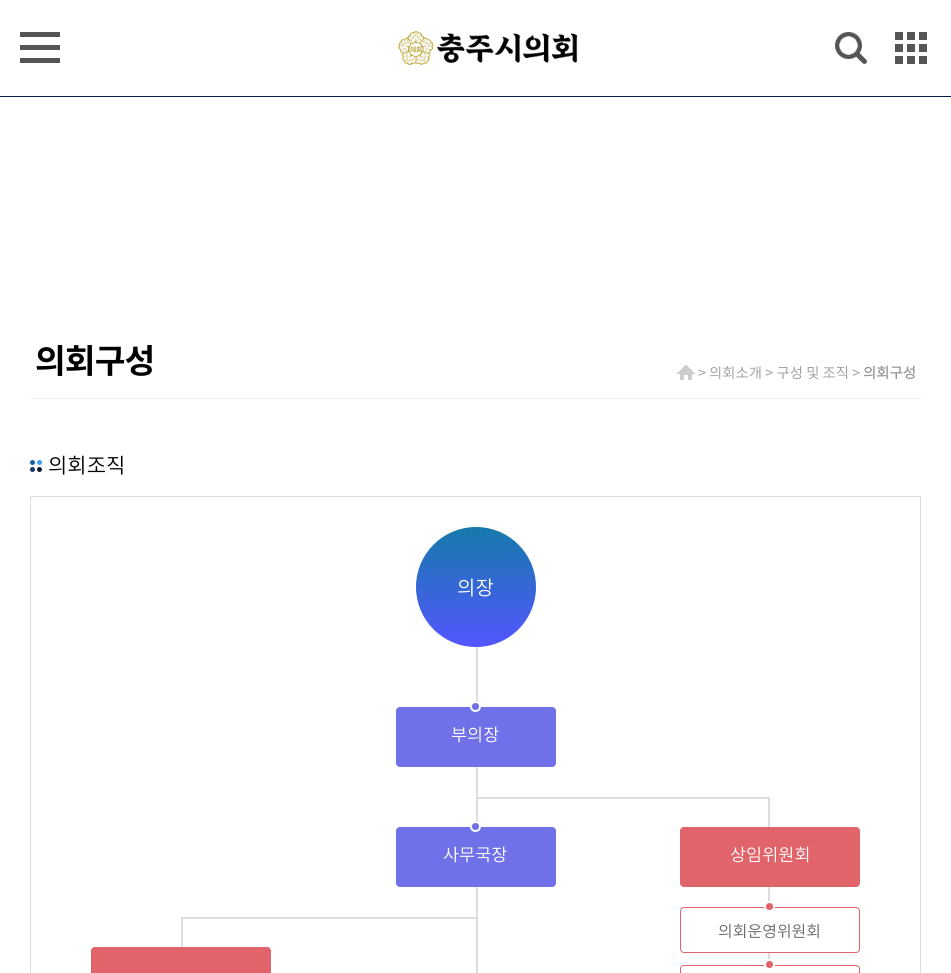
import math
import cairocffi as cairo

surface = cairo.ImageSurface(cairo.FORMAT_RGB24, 951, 973)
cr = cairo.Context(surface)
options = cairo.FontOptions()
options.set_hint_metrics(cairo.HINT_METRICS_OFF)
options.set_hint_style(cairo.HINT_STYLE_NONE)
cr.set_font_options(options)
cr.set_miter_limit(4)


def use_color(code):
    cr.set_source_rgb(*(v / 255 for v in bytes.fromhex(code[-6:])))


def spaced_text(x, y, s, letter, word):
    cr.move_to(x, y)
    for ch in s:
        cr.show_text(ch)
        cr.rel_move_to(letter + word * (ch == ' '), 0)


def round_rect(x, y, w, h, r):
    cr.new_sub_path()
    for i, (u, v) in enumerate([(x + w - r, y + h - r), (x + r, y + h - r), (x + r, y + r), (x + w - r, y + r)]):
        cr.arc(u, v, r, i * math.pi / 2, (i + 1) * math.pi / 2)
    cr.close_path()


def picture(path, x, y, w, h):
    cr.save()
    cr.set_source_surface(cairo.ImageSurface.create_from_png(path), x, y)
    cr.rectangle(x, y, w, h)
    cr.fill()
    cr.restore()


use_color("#ffffff")
cr.paint()
use_color("#081d44")
cr.rectangle(0, 96, 951, 1)
cr.fill()
picture("img1.png", 398, 31, 180, 34)
picture("img2.png", 20, 32, 40, 31)
picture("img3.png", 835, 32, 32, 32)
picture("img4.png", 895, 32, 32, 32)
use_color("#eeeeee")
cr.rectangle(30, 398, 891, 1)
cr.fill()
cr.select_font_face("Noto Sans KR", cairo.FONT_SLANT_NORMAL, cairo.FONT_WEIGHT_BOLD)
cr.set_font_size(33.5)
use_color("#000000")
spaced_text(35, 373, "의회구성", -1, 0)
picture("img5.png", 677, 365, 18, 15)
cr.select_font_face("Noto Sans KR Light")
cr.set_font_size(14.4)
use_color("#999999")
cr.move_to(698, 378)
cr.show_text("> 의회소개 > 구성 및 조직 >")
cr.select_font_face("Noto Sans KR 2", cairo.FONT_SLANT_NORMAL, cairo.FONT_WEIGHT_BOLD)
cr.move_to(863, 378)
cr.show_text("의회구성")
picture("img6.png", 30, 460, 12, 12)
cr.select_font_face("Noto Sans KR Light")
cr.set_font_size(21)
use_color("#000000")
cr.move_to(48, 473)
cr.show_text("의회조직")
use_color("#dddddd")
cr.rectangle(476, 647, 2, 326)
cr.fill()
cr.rectangle(478, 797, 292, 2)
cr.fill()
cr.rectangle(768, 797, 2, 163)
cr.fill()
cr.rectangle(181, 917, 297, 2)
cr.fill()
cr.rectangle(181, 917, 2, 30)
cr.fill()
cr.rectangle(30.5, 496.5, 890, 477)
cr.set_line_width(1)
cr.stroke()
gradient = cairo.LinearGradient(476, 527, 476, 647)
gradient.add_color_stop_rgba(0, 0.086, 0.475, 0.671, 1)
gradient.add_color_stop_rgba(1, 0.325, 0.337, 1, 1)
cr.set_source(gradient)
cr.arc(476, 587, 60, 0, 2 * math.pi)
cr.fill()
cr.set_font_size(20)
use_color("#ffffff")
cr.move_to(457, 595)
cr.show_text("의장")
use_color("#7071e8")
round_rect(396, 707, 160, 60, 4)
cr.fill()
cr.arc(475.5, 706.5, 4.5, 0, 2 * math.pi)
cr.fill_preserve()
use_color("#ffffff")
cr.set_line_width(2)
cr.stroke()
cr.set_font_size(17.5)
cr.move_to(451, 741)
cr.show_text("부의장")
use_color("#e06469")
round_rect(680, 827, 180, 60, 4)
cr.fill()
use_color("#ffffff")
cr.move_to(730, 861)
cr.show_text("상임위원회")
round_rect(680.5, 907.5, 179, 45, 3.5)
cr.fill_preserve()
use_color("#e06469")
cr.set_line_width(1)
cr.stroke()
cr.arc(769.5, 906.5, 4.5, 0, 2 * math.pi)
cr.fill_preserve()
use_color("#ffffff")
cr.set_line_width(2)
cr.stroke()
cr.set_font_size(16)
use_color("#666666")
cr.move_to(718, 937)
cr.show_text("의회운영위원회")
round_rect(680.5, 965.5, 179, 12, 3.5)
use_color("#e06469")
cr.set_line_width(1)
cr.stroke()
cr.arc(769.5, 964.5, 4.5, 0, 2 * math.pi)
cr.fill_preserve()
use_color("#ffffff")
cr.set_line_width(2)
cr.stroke()
use_color("#7071e8")
round_rect(396, 827, 160, 60, 4)
cr.fill()
cr.arc(475.5, 826.5, 4.5, 0, 2 * math.pi)
cr.fill_preserve()
use_color("#ffffff")
cr.stroke()
cr.set_font_size(17.5)
cr.move_to(443, 861)
cr.show_text("사무국장")
use_color("#e06469")
round_rect(91, 947, 180, 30, 4)
cr.fill()
surface.write_to_png("result.png")
